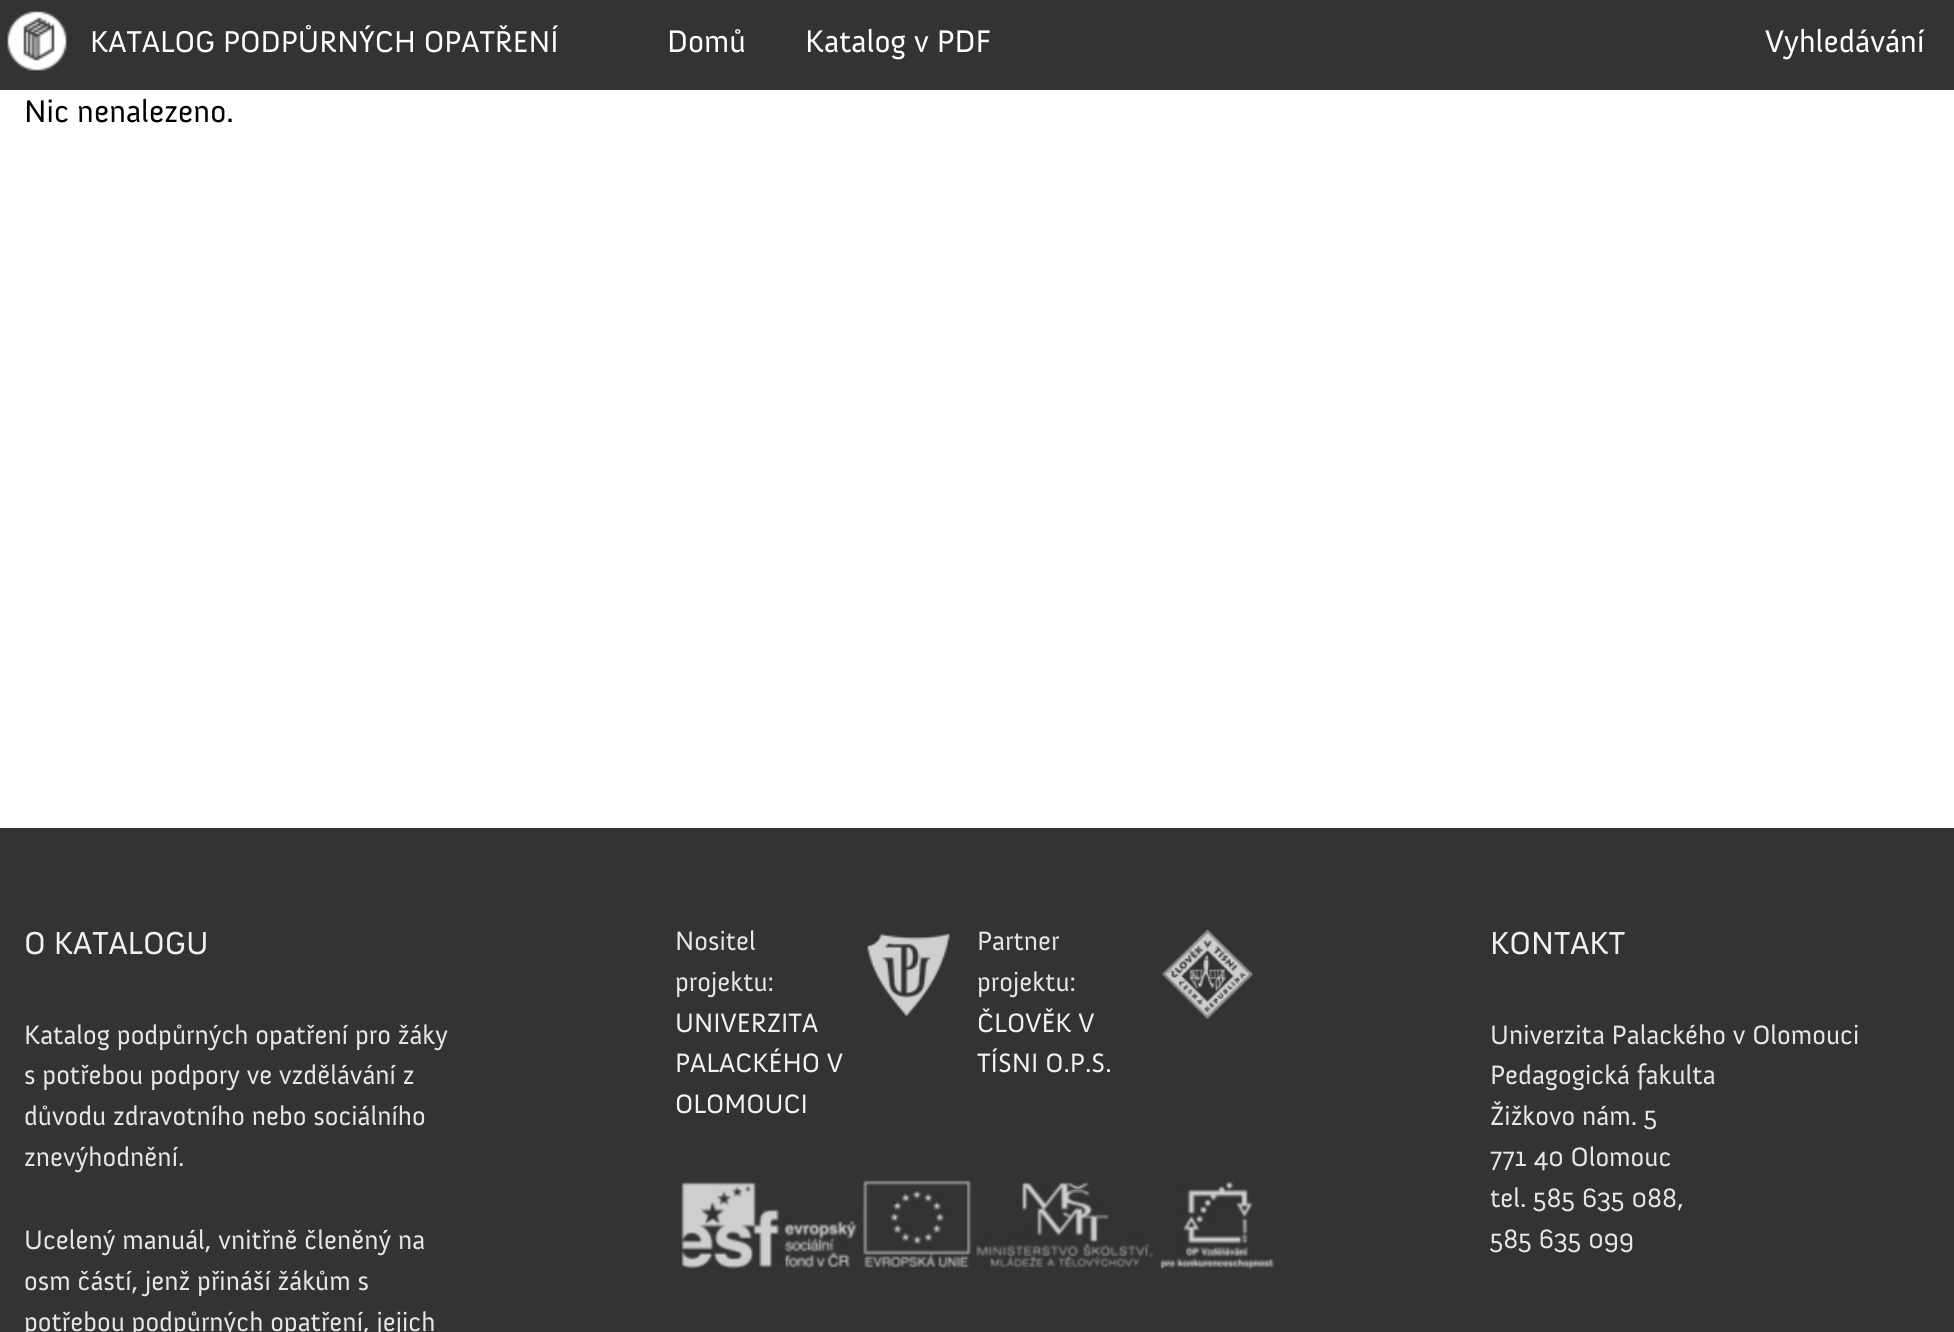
import math
import cairocffi as cairo

surface = cairo.ImageSurface(cairo.FORMAT_RGB24, 1954, 1332)
cr = cairo.Context(surface)
options = cairo.FontOptions()
options.set_hint_metrics(cairo.HINT_METRICS_OFF)
options.set_hint_style(cairo.HINT_STYLE_NONE)
cr.set_font_options(options)
cr.set_miter_limit(4)


def use_color(code):
    cr.set_source_rgb(*(v / 255 for v in bytes.fromhex(code[-6:])))


def picture(path, x, y, w, h):
    cr.save()
    cr.set_source_surface(cairo.ImageSurface.create_from_png(path), x, y)
    cr.rectangle(x, y, w, h)
    cr.fill()
    cr.restore()


use_color("#ffffff")
cr.paint()
use_color("#333333")
cr.rectangle(0, 0, 1954, 90)
cr.fill()
picture("img1.png", 7, 11, 60, 60)
cr.select_font_face("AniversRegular")
cr.set_font_size(30.8)
use_color("#ffffff")
cr.move_to(90, 52)
cr.show_text("KATALOG PODPŮRNÝCH OPATŘENÍ")
cr.set_font_size(32)
cr.move_to(667, 52)
cr.show_text("Domů")
cr.move_to(805, 52)
cr.show_text("Katalog v PDF")
cr.move_to(1765, 52)
cr.show_text("Vyhledávání")
use_color("#000000")
cr.move_to(24, 122)
cr.show_text("Nic nenalezeno.")
use_color("#333333")
cr.rectangle(0, 828, 1954, 504)
cr.fill()
cr.set_font_size(32.5)
use_color("#f1f1f1")
cr.move_to(24, 954)
cr.show_text("O KATALOGU")
cr.set_font_size(27.25)
use_color("#e6e6e6")
cr.move_to(24, 1044)
cr.show_text("Katalog podpůrných opatření pro žáky")
cr.move_to(24, 1084)
cr.show_text("s potřebou podpory ve vzdělávání z")
cr.move_to(24, 1125)
cr.show_text("důvodu zdravotního nebo sociálního")
cr.move_to(24, 1166)
cr.show_text("znevýhodnění.")
cr.move_to(24, 1249)
cr.show_text("Ucelený manuál, vnitřně členěný na")
cr.move_to(24, 1290)
cr.show_text("osm částí, jenž přináší žákům s")
cr.move_to(24, 1331)
cr.show_text("potřebou podpůrných opatření, jejich")
cr.move_to(675, 950)
cr.show_text("Nositel")
picture("img2.png", 867, 933, 83, 84)
cr.move_to(675, 991)
cr.show_text("projektu:")
use_color("#f1f1f1")
cr.move_to(675, 1032)
cr.show_text("UNIVERZITA")
cr.move_to(675, 1072)
cr.show_text("PALACKÉHO V")
cr.move_to(675, 1113)
cr.show_text("OLOMOUCI")
use_color("#e6e6e6")
cr.move_to(977, 950)
cr.show_text("Partner")
picture("img3.png", 1162, 929, 91, 90)
cr.move_to(977, 991)
cr.show_text("projektu:")
use_color("#f1f1f1")
cr.move_to(977, 1032)
cr.show_text("ČLOVĚK V")
cr.move_to(977, 1072)
cr.show_text("TÍSNI O.P.S.")
picture("img4.png", 681, 1180, 594, 89)
cr.set_font_size(32.5)
cr.move_to(1490, 954)
cr.show_text("KONTAKT")
cr.set_font_size(27.25)
use_color("#e6e6e6")
cr.move_to(1490, 1044)
cr.show_text("Univerzita Palackého v Olomouci")
cr.move_to(1490, 1084)
cr.show_text("Pedagogická fakulta")
cr.move_to(1490, 1125)
cr.show_text("Žižkovo nám. 5")
cr.move_to(1490, 1166)
cr.show_text("771 40 Olomouc")
cr.move_to(1490, 1207)
cr.show_text("tel. 585 635 088,")
cr.move_to(1490, 1248)
cr.show_text("585 635 099")
surface.write_to_png("result.png")
